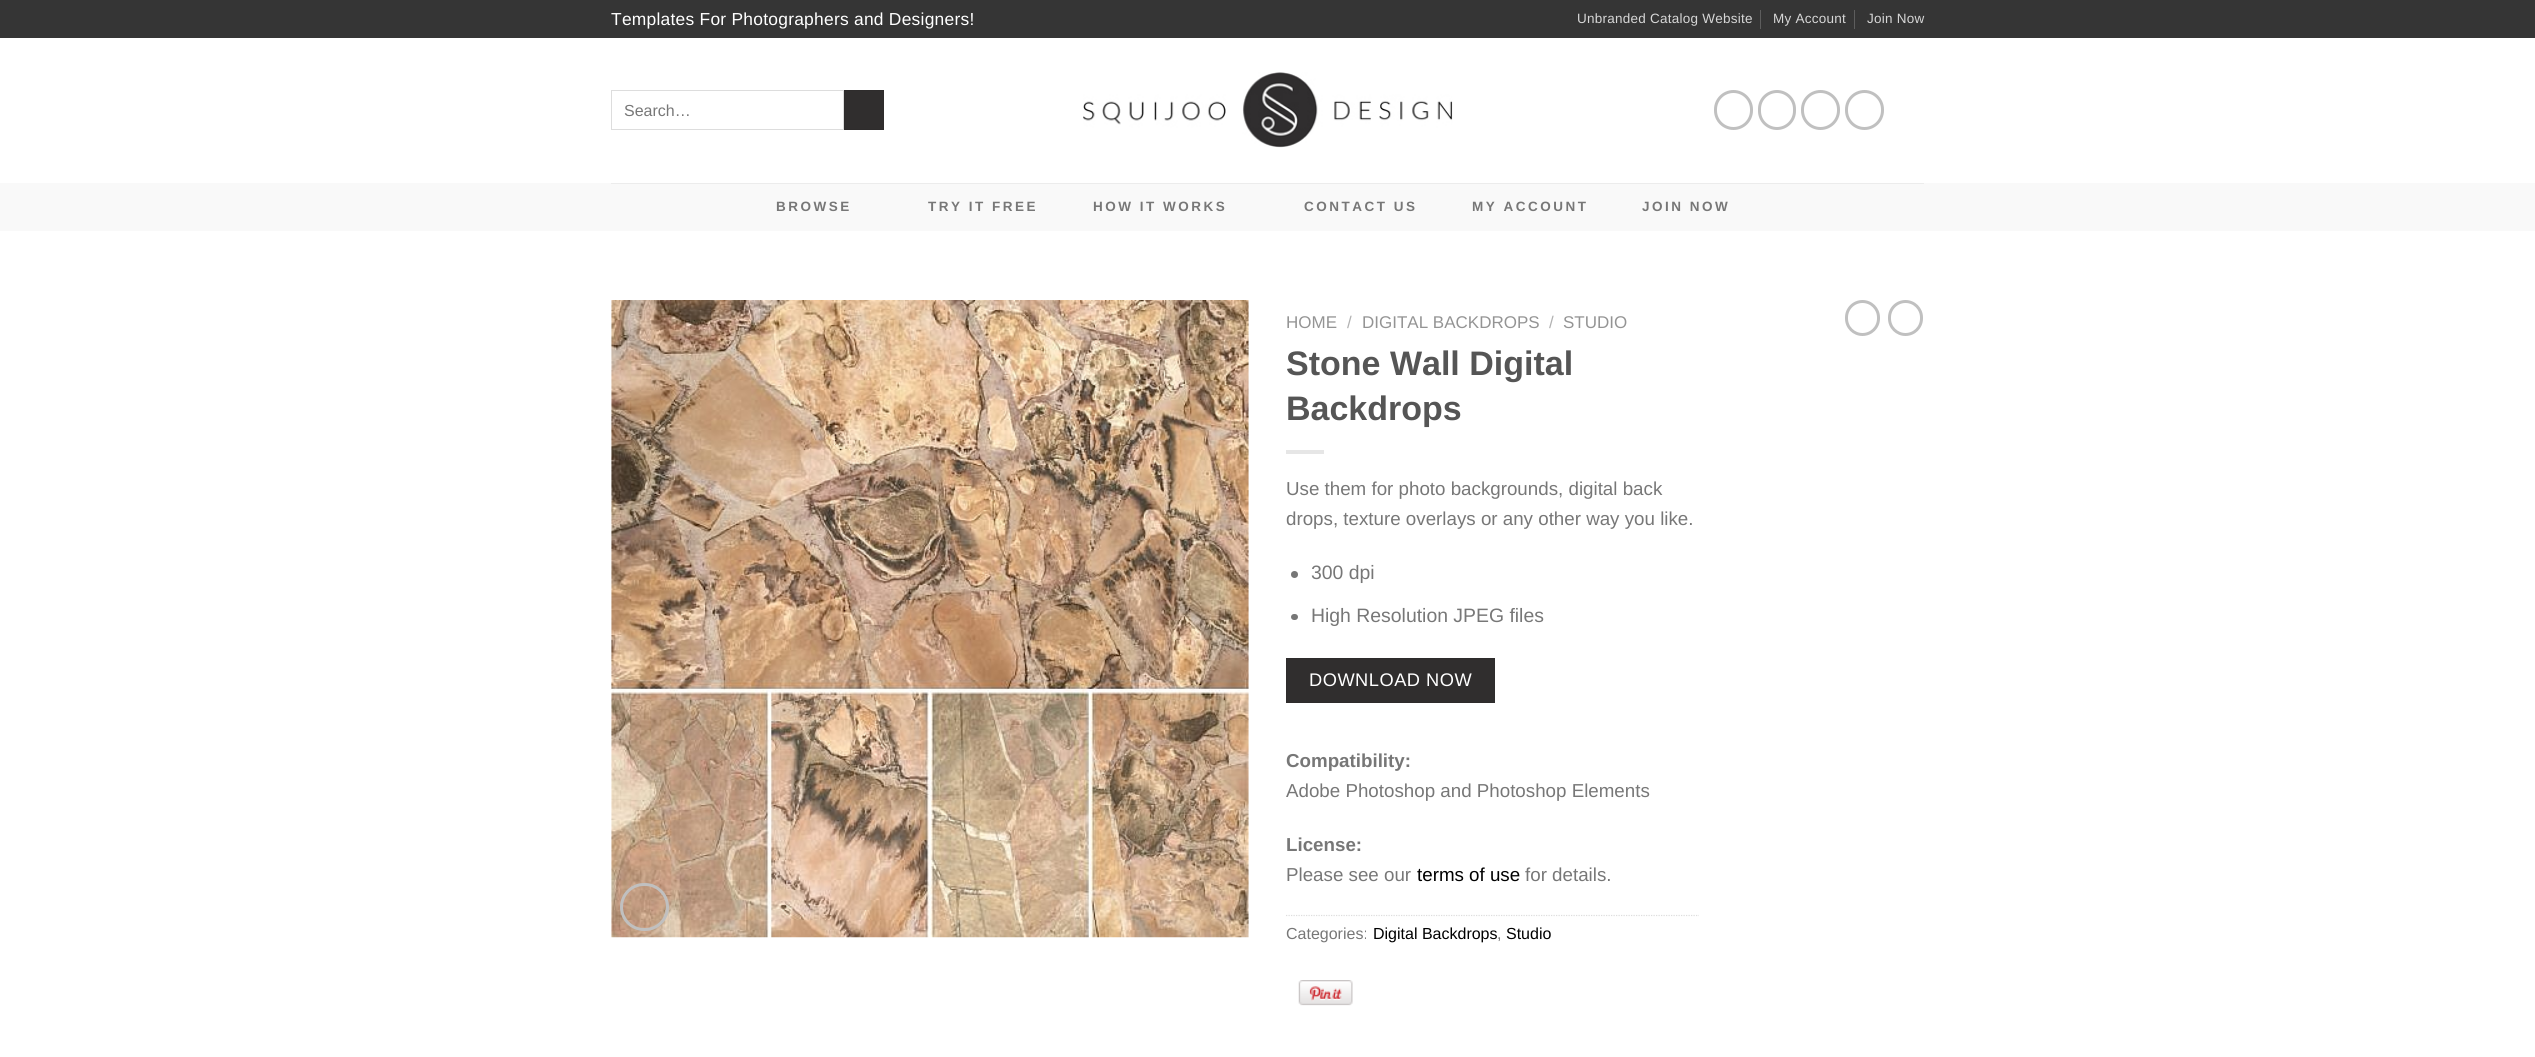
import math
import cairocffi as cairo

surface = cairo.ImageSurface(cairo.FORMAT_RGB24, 2535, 1057)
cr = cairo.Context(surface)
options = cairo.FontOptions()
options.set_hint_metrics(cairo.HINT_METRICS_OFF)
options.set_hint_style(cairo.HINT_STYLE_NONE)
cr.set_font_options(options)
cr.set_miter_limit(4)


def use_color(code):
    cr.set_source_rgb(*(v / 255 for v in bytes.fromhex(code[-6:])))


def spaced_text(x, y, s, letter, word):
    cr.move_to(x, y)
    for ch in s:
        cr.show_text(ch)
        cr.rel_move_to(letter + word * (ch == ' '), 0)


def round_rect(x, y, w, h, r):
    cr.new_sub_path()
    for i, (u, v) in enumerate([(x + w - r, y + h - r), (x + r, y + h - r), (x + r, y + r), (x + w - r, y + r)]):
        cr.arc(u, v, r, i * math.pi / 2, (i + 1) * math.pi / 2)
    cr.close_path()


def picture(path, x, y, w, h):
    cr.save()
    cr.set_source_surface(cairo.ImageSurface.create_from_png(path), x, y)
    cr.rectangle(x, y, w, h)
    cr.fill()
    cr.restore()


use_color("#ffffff")
cr.paint()
use_color("#353535")
cr.rectangle(0, 0, 2535, 38)
cr.fill()
cr.select_font_face("Liberation Sans")
cr.set_font_size(17.4)
use_color("#ffffff")
spaced_text(611, 25, "Templates For Photographers and Designers!", 0.25, 0)
cr.set_font_size(13.5)
use_color("#d7d7d7")
spaced_text(1577, 23, "Unbranded Catalog Website", 0.25, 0)
use_color("#5d5d5d")
cr.rectangle(1760, 10, 1, 19)
cr.fill()
use_color("#d7d7d7")
spaced_text(1773, 23, "My Account", 0.25, 0)
use_color("#5d5d5d")
cr.rectangle(1854, 10, 1, 19)
cr.fill()
use_color("#d7d7d7")
spaced_text(1867, 23, "Join Now", 0.25, 0)
cr.rectangle(611.5, 90.5, 232, 39)
use_color("#dddddd")
cr.set_line_width(1)
cr.stroke()
cr.set_font_size(16)
use_color("#777777")
cr.move_to(624, 116)
cr.show_text("Search…")
use_color("#302e2e")
cr.rectangle(844.5, 90.5, 39, 39)
cr.fill_preserve()
use_color("#2e2c2c")
cr.stroke()
picture("img1.png", 1083, 72, 370, 76)
round_rect(1715.5, 91.5, 36, 37, 18)
use_color("#c0c0c0")
cr.set_line_width(3)
cr.stroke()
round_rect(1759.5, 91.5, 35, 37, 17.5)
cr.stroke()
round_rect(1802.5, 91.5, 36, 37, 18)
cr.stroke()
round_rect(1846.5, 91.5, 36, 37, 18)
cr.stroke()
use_color("#f9f9f9")
cr.rectangle(0, 183, 2535, 48)
cr.fill()
use_color("#ececec")
cr.rectangle(611, 183, 1313, 1)
cr.fill()
cr.select_font_face("Liberation Sans", cairo.FONT_SLANT_NORMAL, cairo.FONT_WEIGHT_BOLD)
cr.set_font_size(13.5)
use_color("#777777")
spaced_text(776, 211, "BROWSE", 2.5, 0)
spaced_text(928, 211, "TRY IT FREE", 2.5, 0)
spaced_text(1093, 211, "HOW IT WORKS", 2.5, 0)
spaced_text(1304, 211, "CONTACT US", 2.5, 0)
spaced_text(1472, 211, "MY ACCOUNT", 2.5, 0)
spaced_text(1642, 211, "JOIN NOW", 2.5, 0)
picture("img2.png", 611, 300, 638, 638)
round_rect(621.5, 884.5, 46, 45, 22.5)
use_color("#c0c0c0")
cr.stroke()
cr.select_font_face("Liberation Sans")
cr.set_font_size(17)
use_color("#949494")
cr.move_to(1286, 328)
cr.show_text("HOME")
use_color("#b2b2b2")
cr.move_to(1347, 328)
cr.show_text("/")
use_color("#949494")
cr.move_to(1362, 328)
cr.show_text("DIGITAL BACKDROPS")
use_color("#b2b2b2")
cr.move_to(1549, 328)
cr.show_text("/")
use_color("#949494")
cr.move_to(1563, 328)
cr.show_text("STUDIO")
cr.select_font_face("Liberation Sans", cairo.FONT_SLANT_NORMAL, cairo.FONT_WEIGHT_BOLD)
cr.set_font_size(34)
use_color("#555555")
cr.move_to(1286, 375)
cr.show_text("Stone Wall Digital")
cr.move_to(1286, 420)
cr.show_text("Backdrops")
use_color("#e6e6e6")
cr.rectangle(1286, 450, 38, 4)
cr.fill()
cr.select_font_face("Liberation Sans")
cr.set_font_size(18.75)
use_color("#777777")
cr.move_to(1286, 495)
cr.show_text("Use them for photo backgrounds, digital back")
cr.move_to(1286, 525)
cr.show_text("drops, texture overlays or any other way you like.")
cr.new_path()
cr.arc(1294.5, 574.5, 3.5, 0, 2 * math.pi)
cr.fill()
cr.set_font_size(19.4)
cr.move_to(1311, 579)
cr.show_text("300 dpi")
round_rect(1291, 614, 7, 6, 3)
cr.fill()
cr.move_to(1311, 622)
cr.show_text("High Resolution JPEG files")
use_color("#302e2e")
cr.rectangle(1286.5, 658.5, 208, 44)
cr.fill_preserve()
use_color("#2e2c2c")
cr.set_line_width(1)
cr.stroke()
cr.set_font_size(18.25)
use_color("#ffffff")
spaced_text(1309, 686, "DOWNLOAD NOW", 0.5, 0)
cr.select_font_face("Liberation Sans", cairo.FONT_SLANT_NORMAL, cairo.FONT_WEIGHT_BOLD)
cr.set_font_size(18.75)
use_color("#777777")
cr.move_to(1286, 767)
cr.show_text("Compatibility:")
cr.select_font_face("Liberation Sans")
cr.move_to(1286, 797)
cr.show_text("Adobe Photoshop and Photoshop Elements")
cr.select_font_face("Liberation Sans", cairo.FONT_SLANT_NORMAL, cairo.FONT_WEIGHT_BOLD)
cr.move_to(1286, 851)
cr.show_text("License:")
cr.select_font_face("Liberation Sans")
cr.move_to(1286, 881)
cr.show_text("Please see our")
use_color("#000000")
cr.move_to(1417, 881)
cr.show_text("terms of use")
use_color("#777777")
cr.move_to(1525, 881)
cr.show_text("for details.")
cr.new_path()
cr.move_to(1286, 915.5)
cr.line_to(1699, 915.5)
use_color("#dddddd")
cr.set_line_width(1.2)
cr.set_dash([1.25, 1.25])
cr.stroke()
cr.set_font_size(16)
use_color("#777777")
cr.move_to(1286, 939)
cr.show_text("Categories:")
use_color("#000000")
cr.move_to(1373, 939)
cr.show_text("Digital Backdrops")
use_color("#777777")
cr.move_to(1497, 939)
cr.show_text(",")
use_color("#000000")
cr.move_to(1506, 939)
cr.show_text("Studio")
picture("img3.png", 1298, 980, 55, 26)
round_rect(1846.5, 301.5, 32, 33, 16)
use_color("#c0c0c0")
cr.set_line_width(3)
cr.set_dash([])
cr.stroke()
round_rect(1889.5, 301.5, 32, 33, 16)
cr.stroke()
surface.write_to_png("result.png")
